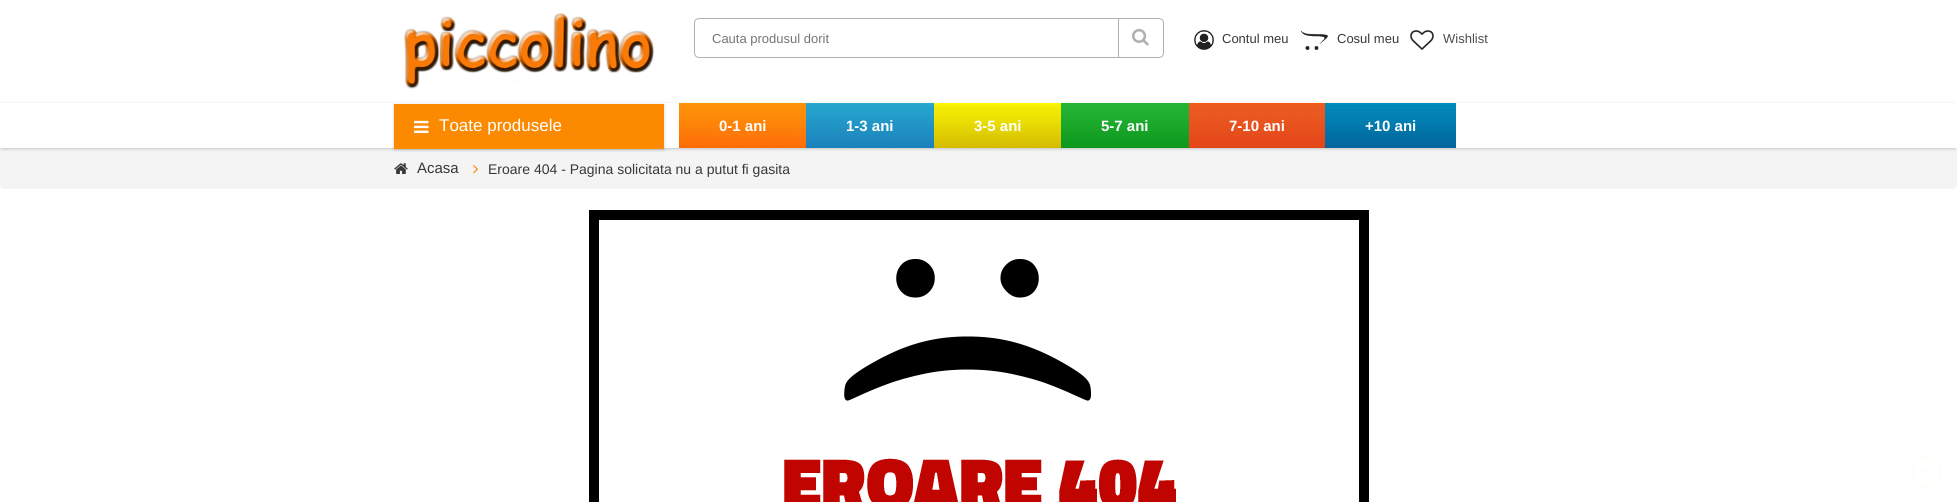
import math
import cairocffi as cairo

surface = cairo.ImageSurface(cairo.FORMAT_RGB24, 1957, 502)
cr = cairo.Context(surface)
options = cairo.FontOptions()
options.set_hint_metrics(cairo.HINT_METRICS_OFF)
options.set_hint_style(cairo.HINT_STYLE_NONE)
cr.set_font_options(options)
cr.set_miter_limit(4)


def use_color(code):
    cr.set_source_rgb(*(v / 255 for v in bytes.fromhex(code[-6:])))


def round_rect(x, y, w, h, r):
    cr.new_sub_path()
    for i, (u, v) in enumerate([(x + w - r, y + h - r), (x + r, y + h - r), (x + r, y + r), (x + w - r, y + r)]):
        cr.arc(u, v, r, i * math.pi / 2, (i + 1) * math.pi / 2)
    cr.close_path()


def shadow(x, y, w, h, r, blur, alpha):
    cr.push_group_with_content(cairo.CONTENT_ALPHA)
    cr.set_operator(cairo.OPERATOR_SOURCE)
    for i in range(15, -16, -2):
        e = blur * i / 6
        if min(w, h) + 2 * e > 0:
            cr.set_source_rgba(0, 0, 0, alpha * math.erfc((i - 1) / 8.5) / 2)
            round_rect(x - e, y - e, w + 2 * e, h + 2 * e, max(0, min(r + e + blur * .6, min(w, h) / 2 + e)))
            cr.fill()
    cr.mask(cr.pop_group())


def picture(path, x, y, w, h):
    cr.save()
    cr.set_source_surface(cairo.ImageSurface.create_from_png(path), x, y)
    cr.rectangle(x, y, w, h)
    cr.fill()
    cr.restore()


use_color("#ffffff")
cr.paint()
picture("img1.png", 404, 13, 250, 76)
round_rect(694.5, 18.5, 469, 39, 4.5)
use_color("#b0b0b0")
cr.set_line_width(1)
cr.stroke()
cr.select_font_face("Liberation Sans")
cr.set_font_size(13)
use_color("#757575")
cr.move_to(712, 43)
cr.show_text("Cauta produsul dorit")
use_color("#b0b0b0")
cr.rectangle(1118, 19, 1, 39)
cr.fill()
picture("img2.png", 1132, 28, 17, 18)
picture("img3.png", 1194, 30, 20, 20)
use_color("#383838")
cr.move_to(1222, 43)
cr.show_text("Contul meu")
picture("img4.png", 1300, 30, 28, 20)
cr.move_to(1337, 43)
cr.show_text("Cosul meu")
picture("img5.png", 1410, 30, 24, 20)
use_color("#4d4d4d")
cr.move_to(1443, 43)
cr.show_text("Wishlist")
use_color("#f4f4f4")
round_rect(0, 148, 1957, 41, 4)
cr.fill()
cr.save()
cr.set_fill_rule(cairo.FILL_RULE_EVEN_ODD)
cr.new_path()
cr.move_to(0, 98)
cr.line_to(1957, 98)
cr.line_to(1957, 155)
cr.line_to(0, 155)
cr.close_path()
cr.move_to(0, 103)
cr.line_to(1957, 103)
cr.line_to(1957, 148)
cr.line_to(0, 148)
cr.close_path()
cr.clip()
use_color("#000000")
shadow(0, 104, 1957, 45, 0, 1.5, 0.2)
cr.restore()
use_color("#000000")
shadow(394, 105, 270, 45, 0, 1.5, 0.2)
use_color("#fb8a00")
cr.rectangle(394, 104, 270, 45)
cr.fill()
picture("img6.png", 414, 120, 15, 13)
cr.set_font_size(17)
use_color("#ffffff")
cr.move_to(439, 131)
cr.show_text("Toate produsele")
picture("img7.png", 679, 103, 127, 45)
cr.select_font_face("Liberation Sans", cairo.FONT_SLANT_NORMAL, cairo.FONT_WEIGHT_BOLD)
cr.set_font_size(15)
cr.move_to(719, 131)
cr.show_text("0-1 ani")
picture("img8.png", 806, 103, 128, 45)
cr.move_to(846, 131)
cr.show_text("1-3 ani")
picture("img9.png", 934, 103, 127, 45)
cr.move_to(974, 131)
cr.show_text("3-5 ani")
picture("img10.png", 1061, 103, 128, 45)
cr.move_to(1101, 131)
cr.show_text("5-7 ani")
picture("img11.png", 1189, 103, 136, 45)
cr.move_to(1229, 131)
cr.show_text("7-10 ani")
picture("img12.png", 1325, 103, 131, 45)
cr.move_to(1365, 131)
cr.show_text("+10 ani")
picture("img13.png", 394, 163, 14, 11)
cr.select_font_face("Liberation Sans")
use_color("#383838")
cr.move_to(417, 173)
cr.show_text("Acasa")
picture("img14.png", 473, 165, 5, 9)
cr.set_font_size(14)
cr.move_to(488, 174)
cr.show_text("Eroare 404 - Pagina solicitata nu a putut fi gasita")
picture("img15.png", 589, 210, 780, 292)
cr.arc(1927, 472, 14, 0, 2 * math.pi)
use_color("#fffcf8")
cr.set_line_width(2)
cr.stroke()
cr.new_path()
cr.move_to(1927, 468)
cr.line_to(1934, 475)
cr.line_to(1931, 475)
cr.line_to(1927, 471)
cr.close_path()
cr.move_to(1920, 475)
cr.line_to(1927, 468)
cr.line_to(1927, 471)
cr.line_to(1923, 475)
cr.close_path()
cr.fill()
surface.write_to_png("result.png")
